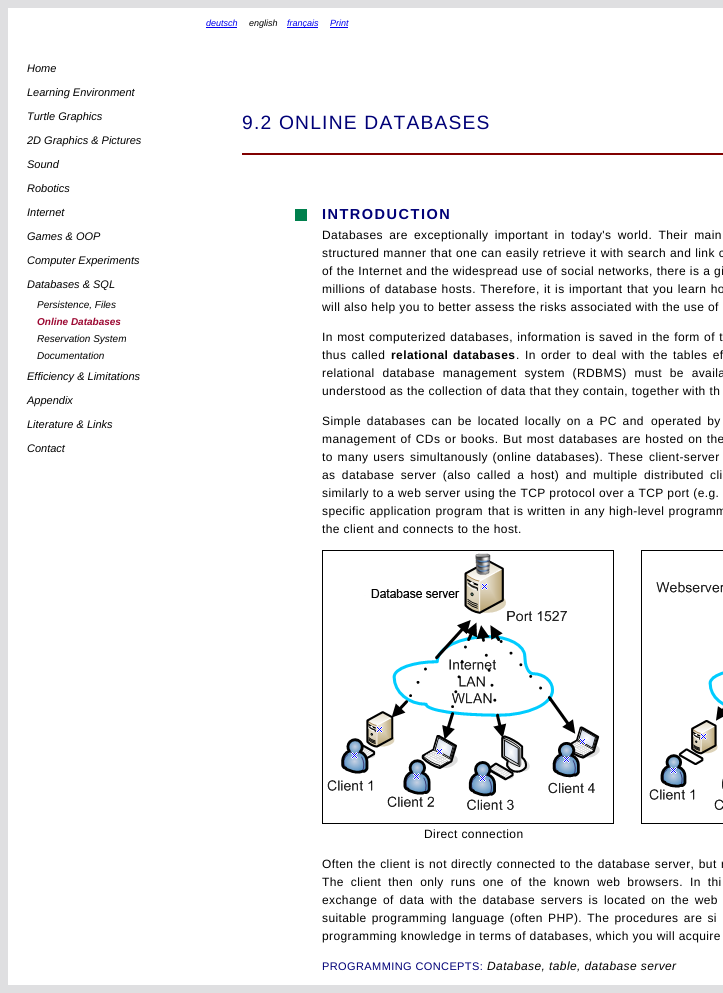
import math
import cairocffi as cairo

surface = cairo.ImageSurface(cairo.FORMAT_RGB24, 723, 993)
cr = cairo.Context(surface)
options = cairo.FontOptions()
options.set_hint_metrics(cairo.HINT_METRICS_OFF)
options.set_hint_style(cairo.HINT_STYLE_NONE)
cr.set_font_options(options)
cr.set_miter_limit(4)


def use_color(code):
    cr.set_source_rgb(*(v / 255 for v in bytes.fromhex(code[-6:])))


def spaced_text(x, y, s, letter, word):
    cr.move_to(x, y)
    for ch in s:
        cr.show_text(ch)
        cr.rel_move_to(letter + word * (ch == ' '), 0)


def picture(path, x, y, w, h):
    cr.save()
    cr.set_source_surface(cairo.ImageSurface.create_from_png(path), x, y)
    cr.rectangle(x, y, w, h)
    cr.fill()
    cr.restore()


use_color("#dfdfe1")
cr.paint()
use_color("#ffffff")
cr.rectangle(8, 8, 715, 977)
cr.fill()
cr.select_font_face("Liberation Sans", cairo.FONT_SLANT_ITALIC)
cr.set_font_size(9)
use_color("#0000ee")
cr.move_to(206, 26)
cr.show_text("deutsch")
cr.rectangle(206, 27, 31, 1)
cr.fill()
use_color("#000000")
cr.move_to(249, 26)
cr.show_text("english")
use_color("#0000ee")
cr.rectangle(287, 27, 31, 1)
cr.fill()
cr.move_to(287, 26)
cr.show_text("français")
cr.move_to(330, 26)
cr.show_text("Print")
cr.rectangle(330, 27, 18, 1)
cr.fill()
cr.set_font_size(11)
use_color("#000000")
cr.move_to(27, 72)
cr.show_text("Home")
cr.move_to(27, 96)
cr.show_text("Learning Environment")
cr.move_to(27, 120)
cr.show_text("Turtle Graphics")
cr.move_to(27, 144)
cr.show_text("2D Graphics & Pictures")
cr.move_to(27, 168)
cr.show_text("Sound")
cr.move_to(27, 192)
cr.show_text("Robotics")
cr.move_to(27, 216)
cr.show_text("Internet")
cr.move_to(27, 240)
cr.show_text("Games & OOP")
cr.move_to(27, 264)
cr.show_text("Computer Experiments")
cr.move_to(27, 288)
cr.show_text("Databases & SQL")
cr.set_font_size(10)
cr.move_to(37, 308)
cr.show_text("Persistence, Files")
cr.select_font_face("Liberation Sans", cairo.FONT_SLANT_ITALIC, cairo.FONT_WEIGHT_BOLD)
use_color("#9c0832")
cr.move_to(37, 325)
cr.show_text("Online Databases")
cr.select_font_face("Liberation Sans", cairo.FONT_SLANT_ITALIC)
use_color("#000000")
cr.move_to(37, 342)
cr.show_text("Reservation System")
cr.move_to(37, 359)
cr.show_text("Documentation")
cr.set_font_size(11)
cr.move_to(27, 380)
cr.show_text("Efficiency & Limitations")
cr.move_to(27, 404)
cr.show_text("Appendix")
cr.move_to(27, 428)
cr.show_text("Literature & Links")
cr.move_to(27, 452)
cr.show_text("Contact")
cr.select_font_face("Liberation Sans")
cr.set_font_size(19.25)
use_color("#000077")
spaced_text(242, 129, "9.2 ONLINE DATABASES", 1.2, 0)
use_color("#800000")
cr.rectangle(242, 153, 481, 2)
cr.fill()
use_color("#00804d")
cr.rectangle(295, 209, 12, 12)
cr.fill()
cr.select_font_face("Liberation Sans", cairo.FONT_SLANT_NORMAL, cairo.FONT_WEIGHT_BOLD)
cr.set_font_size(14.5)
use_color("#000077")
spaced_text(322, 219, "INTRODUCTION", 1.5, 0)
cr.select_font_face("Liberation Sans")
cr.set_font_size(12)
use_color("#000000")
spaced_text(322, 239, "Databases are exceptionally important in", 0.4, 2.5)
spaced_text(571, 239, "today's world. Their main", 0.4, 2.6)
spaced_text(322, 257, "structured manner that", 0.4, 0.25)
spaced_text(456, 257, "one can easily retrieve it with search and link c", 0.4, 0.25)
spaced_text(322, 275, "of the Internet and the widespread use of social networks, there is a gi", 0.4, 0.1)
spaced_text(322, 293, "millions of database hosts. Therefore, it is", 0.4, 0.6)
spaced_text(569, 293, "important that you learn ho", 0.4, 0.6)
spaced_text(322, 311, "will also help you to better assess the risks associated with the use of", 0.4, 0)
spaced_text(322, 341, "In most computerized databases, information is saved in the form of t", 0.4, 0.6)
spaced_text(322, 359, "thus called", 0.4, 1.5)
cr.select_font_face("Liberation Sans", cairo.FONT_SLANT_NORMAL, cairo.FONT_WEIGHT_BOLD)
spaced_text(391, 359, "relational", 0.4, 0)
spaced_text(453, 359, "databases", 0.4, 0)
cr.select_font_face("Liberation Sans")
spaced_text(516, 359, ". In order to deal with the tables ef", 0.4, 1.5)
spaced_text(322, 377, "relational database management system (RDBMS) must be availa", 0.4, 4)
spaced_text(322, 395, "understood as the collection of data that they contain, together with th", 0.4, 0)
spaced_text(322, 425, "Simple databases can be located locally on a PC and", 0.4, 2)
spaced_text(651, 425, "operated by", 0.4, 2)
spaced_text(322, 443, "management of CDs or books.", 0.4, 0.75)
spaced_text(503, 443, "But most databases are hosted on the", 0.4, 0.75)
spaced_text(322, 461, "to many users", 0.4, 1)
spaced_text(410, 461, "simultanously (online databases). These", 0.4, 1)
spaced_text(649, 461, "client-server", 0.4, 1)
spaced_text(322, 479, "as database server (also called a host) and multiple distributed cli", 0.4, 2.6)
spaced_text(322, 497, "similarly to a web server using the TCP protocol over a TCP port (e.g.", 0.4, 0)
spaced_text(322, 515, "specific application program", 0.4, 0.5)
spaced_text(488, 515, "that is written in any high-level programm", 0.4, 0.5)
spaced_text(322, 533, "the client and connects to the host.", 0.4, 0)
cr.rectangle(322.5, 550.5, 291, 273)
cr.set_line_width(1)
cr.stroke()
picture("img1.png", 327, 553, 273, 257)
cr.rectangle(641.5, 550.5, 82, 273)
cr.stroke()
picture("img2.png", 649, 582, 74, 228)
spaced_text(424, 838, "Direct connection", 0.4, 0)
spaced_text(322, 868, "Often the client is not", 0.4, 0.75)
spaced_text(451, 868, "directly connected to the database server, but r", 0.4, 0.75)
spaced_text(322, 886, "The client then only runs one of the known web browsers. In thi", 0.4, 3.25)
spaced_text(322, 904, "exchange of data with the database servers is", 0.4, 2)
spaced_text(604, 904, "located on the web", 0.4, 2)
spaced_text(322, 922, "suitable programming", 0.4, 1.5)
spaced_text(452, 922, "language (often PHP). The procedures are si", 0.4, 1.5)
spaced_text(322, 940, "programming knowledge in terms of databases, which you will acquire", 0.4, 0)
cr.set_font_size(11)
use_color("#000077")
spaced_text(322, 970, "PROGRAMMING CONCEPTS:", 0.4, 0)
cr.select_font_face("Liberation Sans", cairo.FONT_SLANT_ITALIC)
cr.set_font_size(12)
use_color("#000000")
spaced_text(487, 970, "Database, table, database server", 0.4, 0)
surface.write_to_png("result.png")
